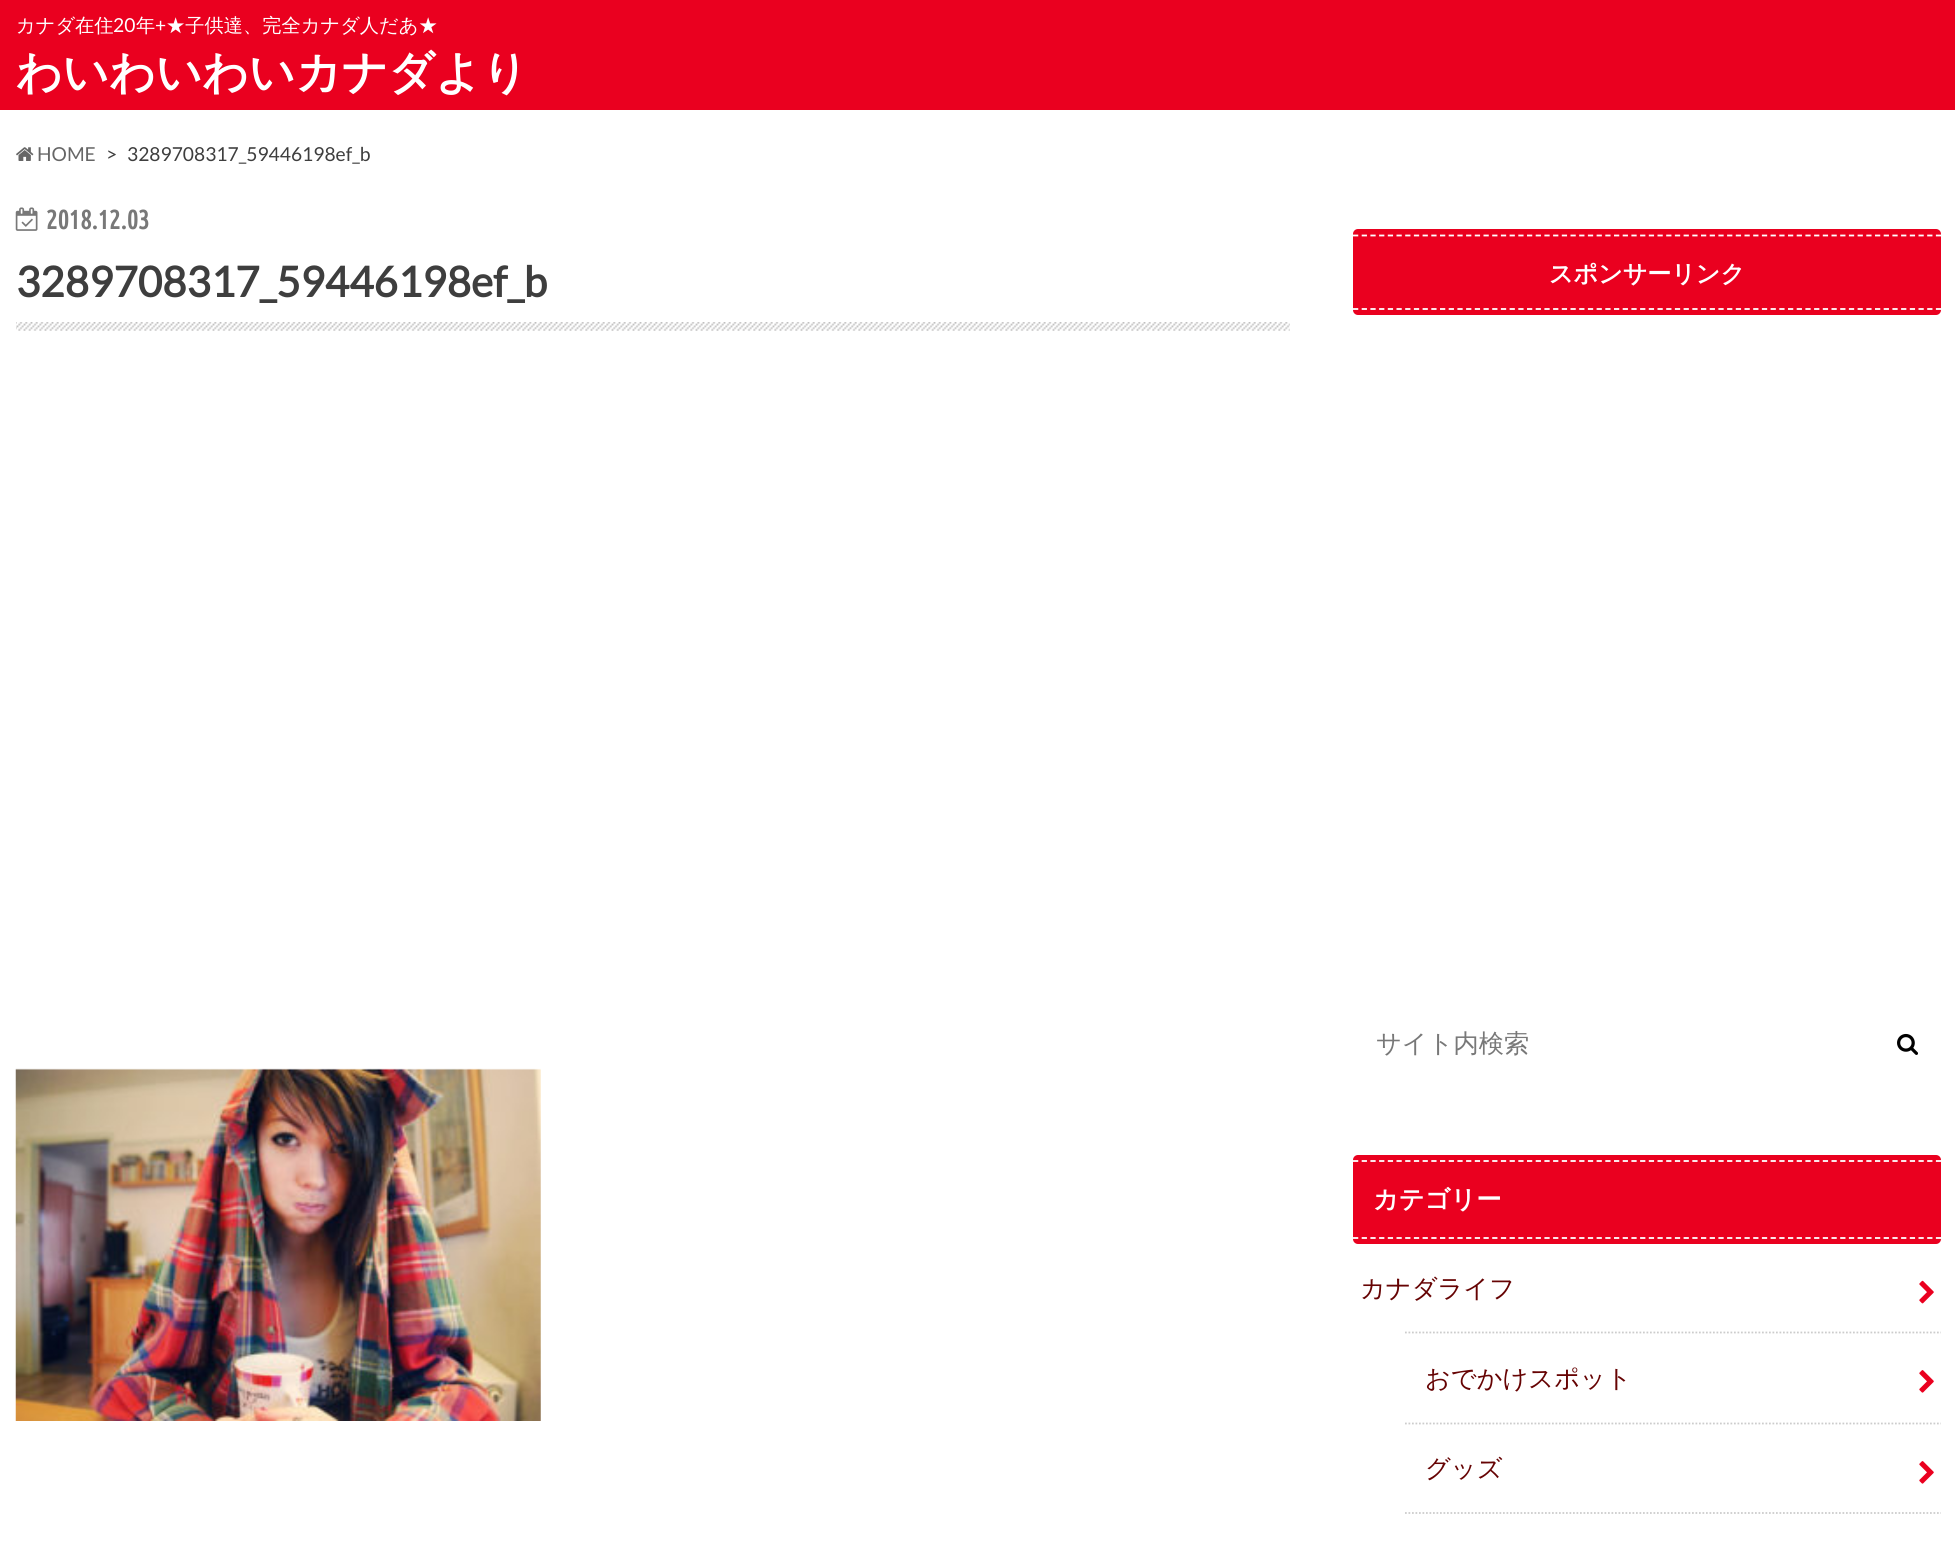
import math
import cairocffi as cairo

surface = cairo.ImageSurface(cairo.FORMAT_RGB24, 1955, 1546)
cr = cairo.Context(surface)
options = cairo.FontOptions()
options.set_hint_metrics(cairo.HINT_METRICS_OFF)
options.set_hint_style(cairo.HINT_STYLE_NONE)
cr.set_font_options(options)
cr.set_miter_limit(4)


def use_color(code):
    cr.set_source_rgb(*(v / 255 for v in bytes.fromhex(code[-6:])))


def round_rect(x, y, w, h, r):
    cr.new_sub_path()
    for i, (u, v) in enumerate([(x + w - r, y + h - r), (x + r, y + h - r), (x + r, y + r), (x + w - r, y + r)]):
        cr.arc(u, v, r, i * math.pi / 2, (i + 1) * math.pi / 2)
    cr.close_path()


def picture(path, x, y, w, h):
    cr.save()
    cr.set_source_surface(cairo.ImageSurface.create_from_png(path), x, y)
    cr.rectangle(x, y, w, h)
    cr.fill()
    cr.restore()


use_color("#ffffff")
cr.paint()
use_color("#ea001f")
cr.rectangle(0, 0, 1955, 110)
cr.fill()
cr.select_font_face("WenQuanYi Zen Hei Medium")
cr.set_font_size(19.25)
use_color("#ffffff")
cr.move_to(16, 32)
cr.show_text("カナダ在住")
cr.select_font_face("Lato")
cr.move_to(113, 32)
cr.show_text("20")
cr.select_font_face("WenQuanYi Zen Hei Medium")
cr.move_to(136, 32)
cr.show_text("年")
cr.select_font_face("Lato")
cr.move_to(155, 32)
cr.show_text("+")
cr.select_font_face("WenQuanYi Zen Hei Medium")
cr.move_to(166, 32)
cr.show_text("★子供達、完全カナダ人だあ★")
cr.select_font_face("WenQuanYi Zen Hei", cairo.FONT_SLANT_NORMAL, cairo.FONT_WEIGHT_BOLD)
cr.set_font_size(45.5)
cr.move_to(16, 88)
cr.show_text("わいわいわいカナダより")
picture("img1.png", 16, 147, 18, 14)
cr.select_font_face("Lato")
cr.set_font_size(19.25)
use_color("#666666")
cr.move_to(37, 161)
cr.show_text("HOME")
use_color("#3e3e3e")
cr.move_to(106, 161)
cr.show_text(">")
cr.move_to(127, 161)
cr.show_text("3289708317_59446198ef_b")
picture("img2.png", 15, 207, 23, 24)
cr.select_font_face("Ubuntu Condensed", cairo.FONT_SLANT_NORMAL, cairo.FONT_WEIGHT_BOLD)
cr.set_font_size(26.5)
use_color("#787878")
cr.move_to(46, 229)
cr.show_text("2018.12.03")
picture("img3.png", 16, 322, 1274, 9)
cr.select_font_face("Lato", cairo.FONT_SLANT_NORMAL, cairo.FONT_WEIGHT_BOLD)
cr.set_font_size(42)
use_color("#3e3e3e")
cr.move_to(16, 297)
cr.show_text("3289708317_59446198ef_b")
picture("img4.png", 15, 1068, 526, 353)
use_color("#ea001f")
round_rect(1353, 229, 588, 86, 5)
cr.fill()
cr.new_path()
cr.move_to(1353, 235.5)
cr.line_to(1941, 235.5)
use_color("#ffffff")
cr.set_line_width(1.8)
cr.set_dash([5.25, 3.45])
cr.stroke()
cr.new_path()
cr.move_to(1353, 309)
cr.line_to(1941, 309)
cr.stroke()
cr.select_font_face("WenQuanYi Zen Hei", cairo.FONT_SLANT_NORMAL, cairo.FONT_WEIGHT_BOLD)
cr.set_font_size(24)
cr.move_to(1549, 282)
cr.show_text("スポンサーリンク")
cr.select_font_face("WenQuanYi Zen Hei Medium")
cr.set_font_size(25.25)
use_color("#787878")
cr.move_to(1376, 1052)
cr.show_text("サイト内検索")
picture("img5.png", 1897, 1033, 21, 22)
use_color("#ea001f")
round_rect(1353, 1155, 588, 89, 5)
cr.fill()
cr.new_path()
cr.move_to(1353, 1161)
cr.line_to(1941, 1161)
use_color("#ffffff")
cr.stroke()
cr.new_path()
cr.move_to(1353, 1238)
cr.line_to(1941, 1238)
cr.stroke()
cr.select_font_face("WenQuanYi Zen Hei", cairo.FONT_SLANT_NORMAL, cairo.FONT_WEIGHT_BOLD)
cr.move_to(1373, 1208)
cr.show_text("カテゴリー")
cr.select_font_face("WenQuanYi Zen Hei Medium")
use_color("#660303")
cr.move_to(1360, 1297)
cr.show_text("カナダライフ")
picture("img6.png", 1919, 1280, 15, 24)
cr.new_path()
cr.move_to(1405, 1332.5)
cr.line_to(1941, 1332.5)
use_color("#cccccc")
cr.set_dash([1.75, 1.75])
cr.stroke()
cr.new_path()
cr.move_to(1405, 1423.5)
cr.line_to(1941, 1423.5)
cr.stroke()
use_color("#660303")
cr.move_to(1425, 1387)
cr.show_text("おでかけスポット")
picture("img7.png", 1919, 1370, 15, 23)
cr.new_path()
cr.move_to(1405, 1513)
cr.line_to(1941, 1513)
use_color("#cccccc")
cr.stroke()
use_color("#660303")
cr.move_to(1425, 1477)
cr.show_text("グッズ")
picture("img7.png", 1919, 1461, 15, 23)
surface.write_to_png("result.png")
